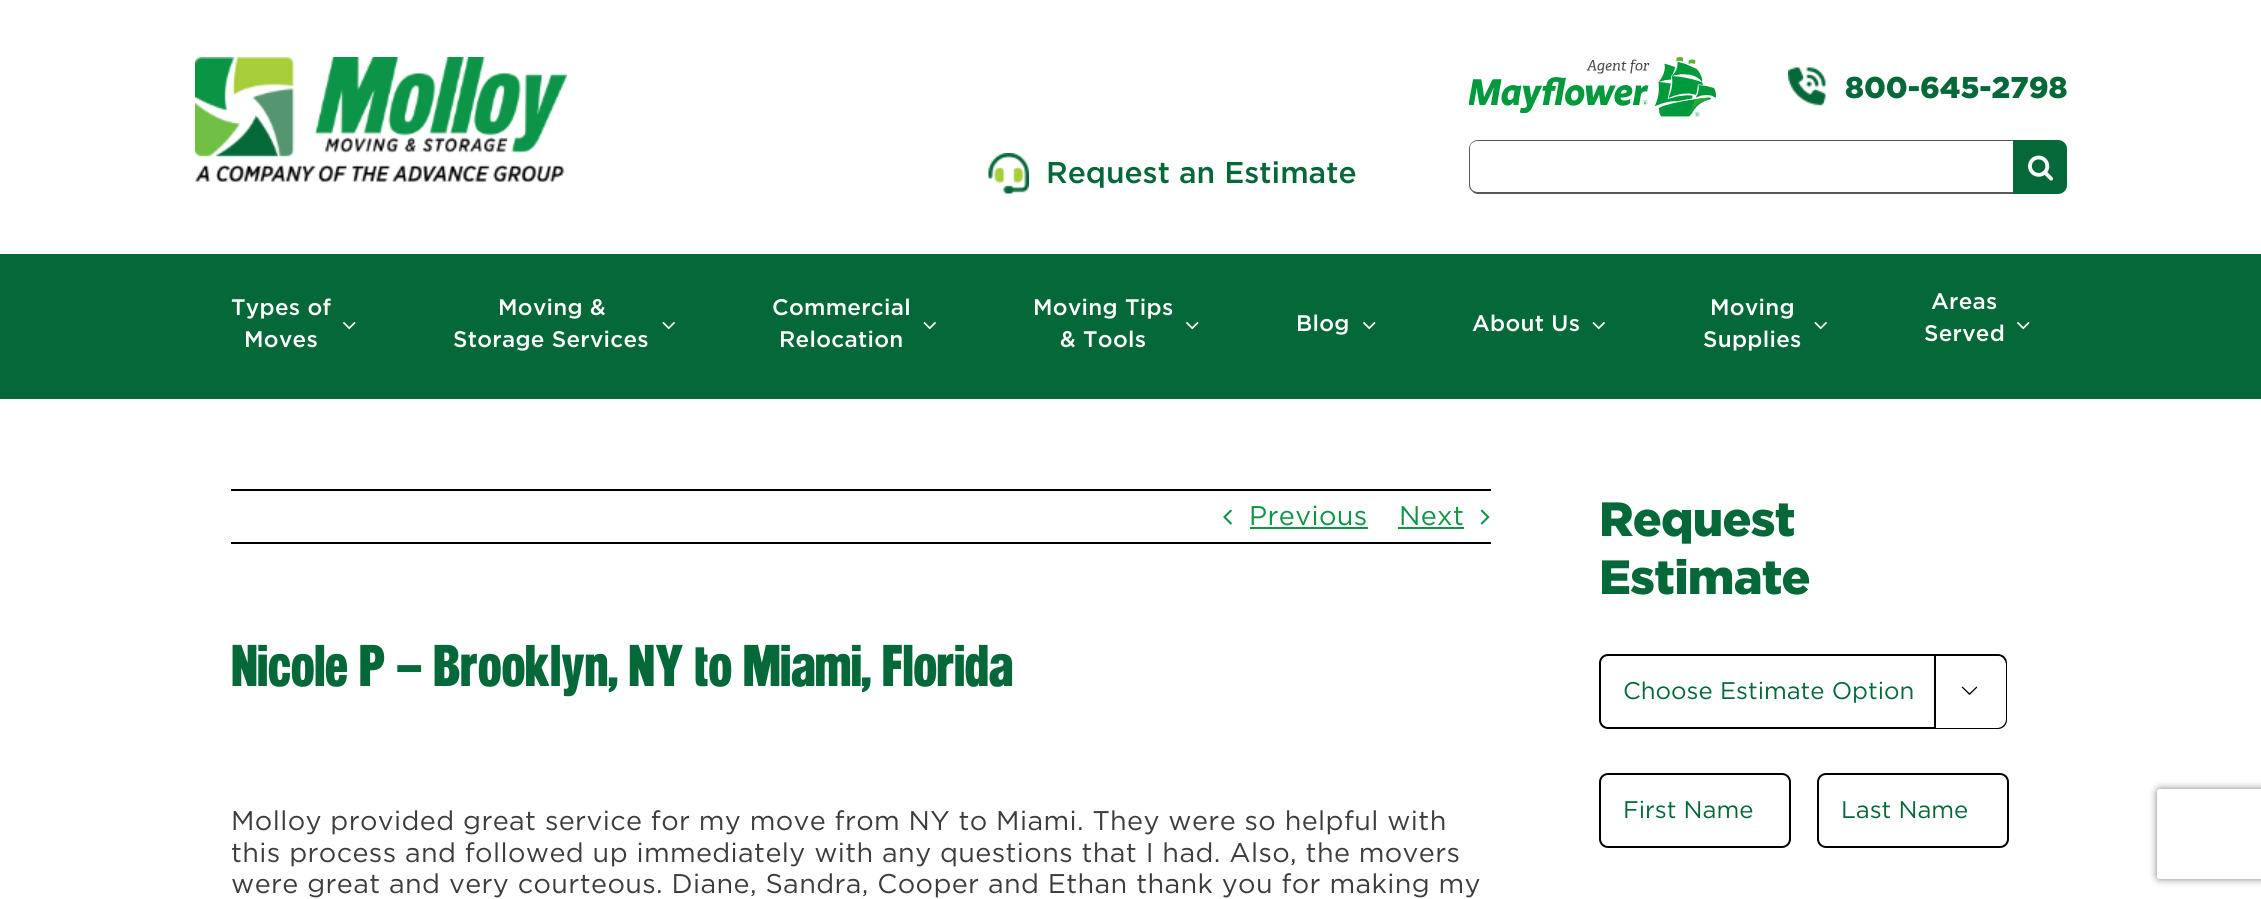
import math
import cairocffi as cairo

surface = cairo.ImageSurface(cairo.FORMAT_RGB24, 2261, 899)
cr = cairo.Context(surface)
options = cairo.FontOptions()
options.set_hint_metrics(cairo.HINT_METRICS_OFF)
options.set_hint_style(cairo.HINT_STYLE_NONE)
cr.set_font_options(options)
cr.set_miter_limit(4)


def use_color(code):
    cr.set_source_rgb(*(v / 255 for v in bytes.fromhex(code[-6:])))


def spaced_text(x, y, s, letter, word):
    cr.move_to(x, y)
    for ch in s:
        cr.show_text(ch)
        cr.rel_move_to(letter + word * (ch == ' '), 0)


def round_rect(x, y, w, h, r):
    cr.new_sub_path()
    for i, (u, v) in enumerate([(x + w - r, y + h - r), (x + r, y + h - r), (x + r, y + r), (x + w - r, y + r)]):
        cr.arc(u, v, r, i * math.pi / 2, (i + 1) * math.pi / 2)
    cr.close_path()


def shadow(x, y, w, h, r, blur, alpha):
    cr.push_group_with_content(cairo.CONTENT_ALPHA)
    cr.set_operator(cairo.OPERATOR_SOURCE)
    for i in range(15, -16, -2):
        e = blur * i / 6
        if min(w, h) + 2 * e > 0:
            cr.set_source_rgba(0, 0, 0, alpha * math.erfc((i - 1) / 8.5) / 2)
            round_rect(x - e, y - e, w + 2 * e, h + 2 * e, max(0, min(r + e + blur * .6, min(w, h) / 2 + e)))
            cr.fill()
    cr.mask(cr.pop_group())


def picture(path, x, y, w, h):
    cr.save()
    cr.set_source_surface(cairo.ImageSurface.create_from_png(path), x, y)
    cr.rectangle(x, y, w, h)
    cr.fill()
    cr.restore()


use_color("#ffffff")
cr.paint()
picture("img1.png", 195, 57, 372, 126)
picture("img2.png", 1469, 57, 247, 60)
picture("img3.png", 1788, 67, 38, 39)
cr.select_font_face("Gotham Black")
cr.set_font_size(30)
use_color("#056839")
cr.move_to(1845, 98)
cr.show_text("800-645-2798")
use_color("#58595b")
cr.new_path()
cr.move_to(1478, 140)
cr.curve_to(1473, 140, 1469, 144, 1469, 149)
cr.line_to(1469, 185)
cr.curve_to(1469, 187, 1470, 190, 1472, 191)
cr.curve_to(1473, 193, 1476, 194, 1478, 194)
cr.line_to(2013, 194)
cr.line_to(2013, 192)
cr.line_to(1478, 192)
cr.curve_to(1473, 192, 1470, 189, 1470, 184)
cr.line_to(1470, 148)
cr.curve_to(1470, 144, 1473, 141, 1478, 141)
cr.line_to(2013, 141)
cr.line_to(2013, 140)
cr.close_path()
cr.fill()
use_color("#056839")
cr.new_path()
cr.move_to(2013, 140)
cr.line_to(2058, 140)
cr.curve_to(2063, 140, 2067, 144, 2067, 149)
cr.line_to(2067, 185)
cr.curve_to(2067, 190, 2063, 194, 2058, 194)
cr.line_to(2013, 194)
cr.close_path()
cr.fill()
picture("img4.png", 2028, 155, 26, 26)
picture("img5.png", 988, 153, 41, 41)
cr.select_font_face("Gotham Medium")
cr.move_to(1046, 183)
cr.show_text("Request an Estimate")
cr.rectangle(0, 254, 2261, 145)
cr.fill()
cr.set_font_size(22.5)
use_color("#ffffff")
spaced_text(231, 315, "Types of", 0.3, 0)
spaced_text(244, 347, "Moves", 0.3, 0)
picture("img6.png", 343, 322, 13, 8)
spaced_text(498, 315, "Moving &", 0.3, 0)
spaced_text(453, 347, "Storage Services", 0.3, 0)
picture("img7.png", 662, 322, 13, 8)
spaced_text(772, 315, "Commercial", 0.3, 0)
spaced_text(779, 347, "Relocation", 0.3, 0)
picture("img7.png", 923, 322, 13, 8)
spaced_text(1033, 315, "Moving Tips", 0.3, 0)
spaced_text(1060, 347, "& Tools", 0.3, 0)
picture("img6.png", 1186, 322, 13, 8)
spaced_text(1296, 331, "Blog", 0.3, 0)
picture("img6.png", 1363, 322, 13, 8)
spaced_text(1472, 331, "About Us", 0.3, 0)
picture("img7.png", 1592, 322, 13, 8)
spaced_text(1710, 315, "Moving", 0.3, 0)
spaced_text(1703, 347, "Supplies", 0.3, 0)
picture("img7.png", 1814, 322, 13, 8)
spaced_text(1931, 309, "Areas", 0.3, 0)
spaced_text(1924, 341, "Served", 0.3, 0)
picture("img6.png", 2017, 322, 13, 8)
use_color("#000000")
cr.rectangle(231, 489, 1260, 2)
cr.fill()
cr.rectangle(231, 542, 1260, 2)
cr.fill()
picture("img8.png", 1223, 509, 9, 16)
cr.select_font_face("Gotham")
cr.set_font_size(27)
use_color("#0b9444")
spaced_text(1249, 525, "Previous", 0.4, 0)
cr.rectangle(1250, 527, 118, 2)
cr.fill()
spaced_text(1399, 525, "Next", 0.4, 0)
cr.rectangle(1398, 527, 66, 2)
cr.fill()
picture("img9.png", 1480, 509, 10, 16)
cr.select_font_face("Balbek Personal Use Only")
cr.set_font_size(52.5)
use_color("#056839")
spaced_text(231, 686, "Nicole P – Brooklyn, NY to Miami, Florida", -0.8, 0)
cr.select_font_face("Gotham")
cr.set_font_size(27)
use_color("#3c3c3c")
spaced_text(231, 830, "Molloy provided great service for my move from NY to Miami. They were so helpful with", 0.4, 0)
spaced_text(231, 862, "this process and followed up immediately with any questions that I had. Also, the movers", 0.4, 0)
spaced_text(231, 893, "were great and very courteous. Diane, Sandra, Cooper and Ethan thank you for making my", 0.4, 0)
cr.select_font_face("Gotham Black")
cr.set_font_size(48)
use_color("#056839")
spaced_text(1599, 536, "Request", -0.75, 0)
spaced_text(1599, 594, "Estimate", -0.75, 0)
round_rect(1600, 655, 406, 73, 8)
use_color("#000000")
cr.stroke()
cr.select_font_face("Gotham")
cr.set_font_size(24)
use_color("#056839")
cr.move_to(1623, 699)
cr.show_text("Choose Estimate Option")
use_color("#ffffff")
cr.new_path()
cr.move_to(1934, 656)
cr.line_to(1997, 656)
cr.curve_to(2002, 656, 2006, 660, 2006, 665)
cr.line_to(2006, 719)
cr.curve_to(2006, 724, 2002, 728, 1997, 728)
cr.line_to(1934, 728)
cr.close_path()
cr.fill()
use_color("#000000")
cr.rectangle(1934, 656, 2, 72)
cr.fill()
picture("img10.png", 1961, 686, 17, 9)
round_rect(1600, 774, 190, 73, 8)
cr.stroke()
use_color("#056839")
cr.move_to(1623, 818)
cr.show_text("First Name")
round_rect(1818, 774, 190, 73, 8)
use_color("#000000")
cr.stroke()
use_color("#056839")
cr.move_to(1841, 818)
cr.show_text("Last Name")
cr.save()
cr.set_fill_rule(cairo.FILL_RULE_EVEN_ODD)
cr.new_path()
cr.move_to(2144, 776)
cr.line_to(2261, 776)
cr.line_to(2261, 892)
cr.line_to(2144, 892)
cr.close_path()
cr.move_to(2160, 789)
cr.line_to(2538, 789)
cr.curve_to(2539.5, 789, 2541, 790.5, 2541, 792)
cr.line_to(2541, 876)
cr.curve_to(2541, 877.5, 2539.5, 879, 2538, 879)
cr.line_to(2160, 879)
cr.curve_to(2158.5, 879, 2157, 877.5, 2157, 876)
cr.line_to(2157, 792)
cr.curve_to(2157, 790.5, 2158.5, 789, 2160, 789)
cr.close_path()
cr.clip()
use_color("#808080")
shadow(2157, 789, 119, 90, 3, 4, 1)
cr.restore()
surface.write_to_png("result.png")
